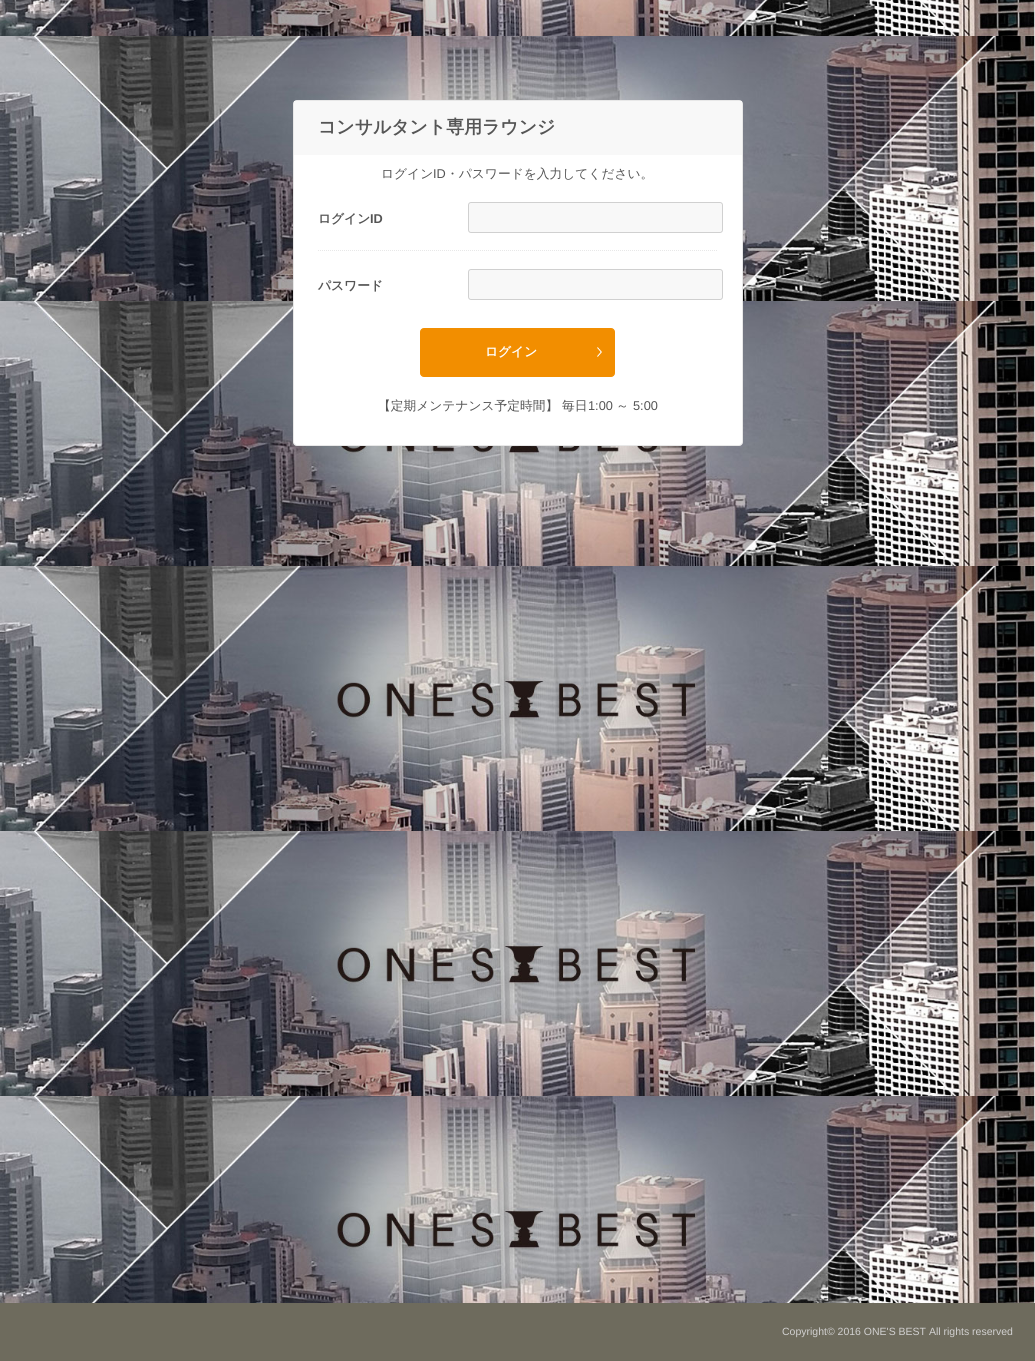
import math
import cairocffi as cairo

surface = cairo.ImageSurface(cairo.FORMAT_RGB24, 1035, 1361)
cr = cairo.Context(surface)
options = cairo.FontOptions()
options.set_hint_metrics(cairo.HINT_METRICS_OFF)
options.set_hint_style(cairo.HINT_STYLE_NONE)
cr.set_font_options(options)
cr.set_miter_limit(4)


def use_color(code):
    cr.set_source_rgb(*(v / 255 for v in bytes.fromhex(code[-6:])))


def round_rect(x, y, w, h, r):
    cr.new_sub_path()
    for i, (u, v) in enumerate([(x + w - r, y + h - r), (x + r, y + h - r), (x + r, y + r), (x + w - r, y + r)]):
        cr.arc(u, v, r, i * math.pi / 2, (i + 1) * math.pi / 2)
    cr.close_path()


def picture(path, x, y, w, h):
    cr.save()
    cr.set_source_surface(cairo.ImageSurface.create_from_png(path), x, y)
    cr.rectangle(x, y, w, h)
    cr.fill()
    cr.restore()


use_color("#ffffff")
cr.paint()
picture("img1.png", 0, 0, 1035, 1303)
use_color("#ffffff")
round_rect(293.5, 100.5, 449, 345, 3.5)
cr.fill_preserve()
use_color("#e8e8e8")
cr.set_line_width(1)
cr.stroke()
use_color("#f8f8f8")
cr.rectangle(294, 101, 448, 54)
cr.fill()
cr.select_font_face("WenQuanYi Zen Hei", cairo.FONT_SLANT_NORMAL, cairo.FONT_WEIGHT_BOLD)
cr.set_font_size(17.9)
use_color("#555555")
cr.move_to(318, 133)
cr.show_text("コンサルタント専用ラウンジ")
cr.select_font_face("WenQuanYi Zen Hei Medium")
cr.set_font_size(12.75)
cr.move_to(381, 178)
cr.show_text("ログイン")
cr.select_font_face("Liberation Sans")
cr.move_to(433, 178)
cr.show_text("ID")
cr.select_font_face("WenQuanYi Zen Hei Medium")
cr.move_to(446, 178)
cr.show_text("・パスワードを入力してください。")
cr.new_path()
cr.move_to(318, 250.5)
cr.line_to(718, 250.5)
use_color("#e8e8e8")
cr.set_dash([1, 1])
cr.stroke()
cr.select_font_face("WenQuanYi Zen Hei", cairo.FONT_SLANT_NORMAL, cairo.FONT_WEIGHT_BOLD)
use_color("#555555")
cr.move_to(318, 223)
cr.show_text("ログイン")
cr.select_font_face("Liberation Sans", cairo.FONT_SLANT_NORMAL, cairo.FONT_WEIGHT_BOLD)
cr.move_to(370, 223)
cr.show_text("ID")
use_color("#f8f8f8")
round_rect(468.5, 202.5, 254, 30, 2.5)
cr.fill_preserve()
use_color("#d0d0d0")
cr.set_dash([])
cr.stroke()
cr.select_font_face("WenQuanYi Zen Hei", cairo.FONT_SLANT_NORMAL, cairo.FONT_WEIGHT_BOLD)
use_color("#555555")
cr.move_to(318, 290)
cr.show_text("パスワード")
use_color("#f8f8f8")
round_rect(468.5, 269.5, 254, 30, 2.5)
cr.fill_preserve()
use_color("#d0d0d0")
cr.stroke()
use_color("#f28e00")
round_rect(420.5, 328.5, 194, 48, 3.5)
cr.fill_preserve()
cr.stroke()
use_color("#ffffff")
cr.move_to(485, 356)
cr.show_text("ログイン")
picture("img2.png", 597, 347, 5, 10)
cr.select_font_face("WenQuanYi Zen Hei Medium")
use_color("#555555")
cr.move_to(378, 410)
cr.show_text("【定期メンテナンス予定時間】 毎日")
cr.select_font_face("Liberation Sans")
cr.move_to(588, 410)
cr.show_text("1:00")
cr.select_font_face("WenQuanYi Zen Hei Medium")
cr.move_to(616, 410)
cr.show_text("～")
cr.select_font_face("Liberation Sans")
cr.move_to(633, 410)
cr.show_text("5:00")
use_color("#6e6b5d")
cr.rectangle(0, 1303, 1035, 58)
cr.fill()
cr.set_font_size(10.5)
use_color("#d1d0d0")
cr.move_to(782, 1335)
cr.show_text("Copyright© 2016 ONE'S BEST All rights reserved")
surface.write_to_png("result.png")
